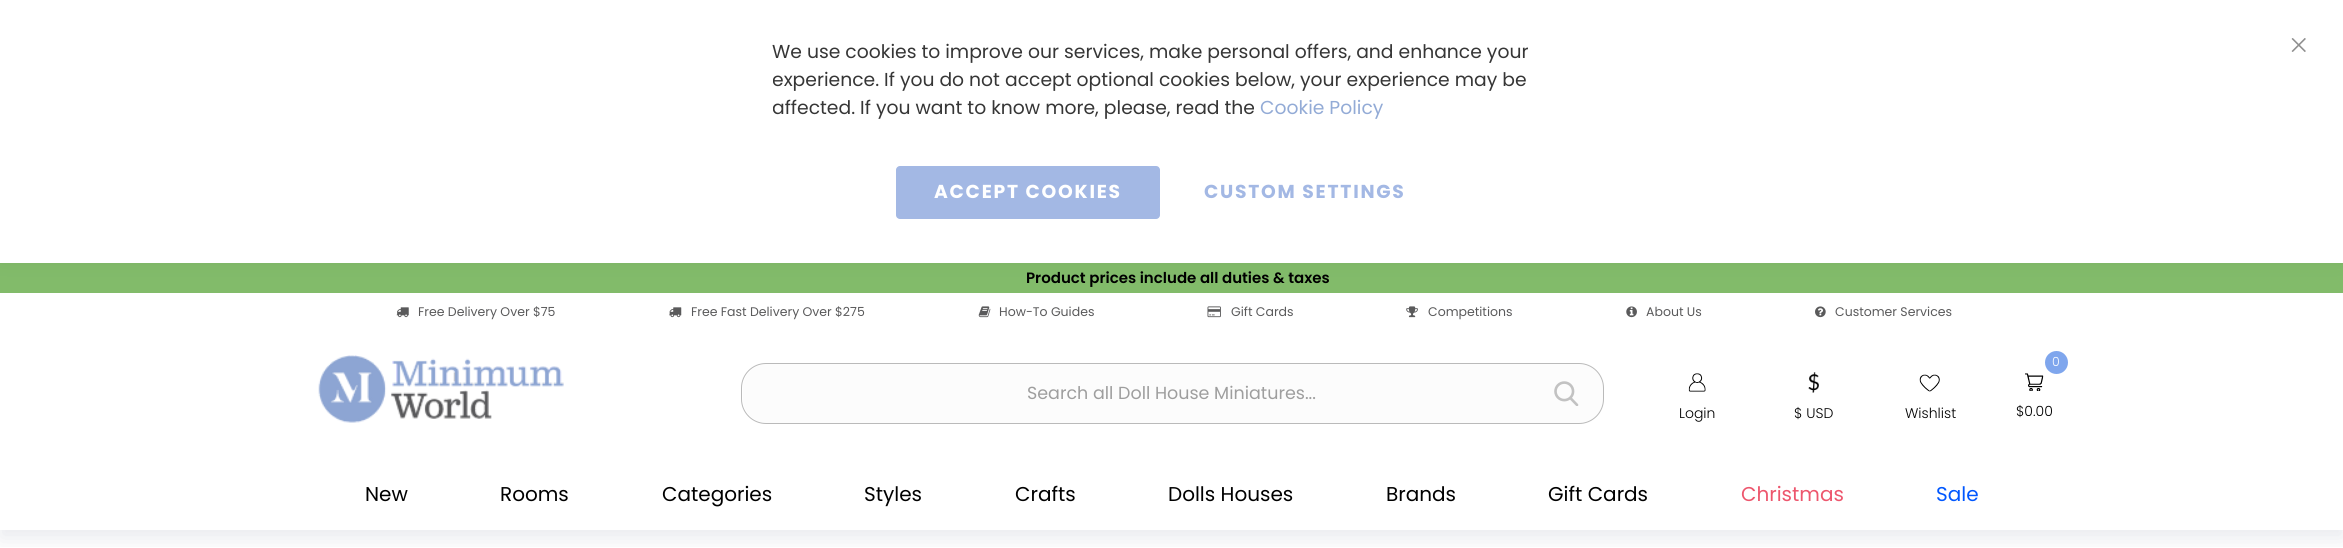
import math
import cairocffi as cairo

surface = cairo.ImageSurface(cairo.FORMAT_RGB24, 2343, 548)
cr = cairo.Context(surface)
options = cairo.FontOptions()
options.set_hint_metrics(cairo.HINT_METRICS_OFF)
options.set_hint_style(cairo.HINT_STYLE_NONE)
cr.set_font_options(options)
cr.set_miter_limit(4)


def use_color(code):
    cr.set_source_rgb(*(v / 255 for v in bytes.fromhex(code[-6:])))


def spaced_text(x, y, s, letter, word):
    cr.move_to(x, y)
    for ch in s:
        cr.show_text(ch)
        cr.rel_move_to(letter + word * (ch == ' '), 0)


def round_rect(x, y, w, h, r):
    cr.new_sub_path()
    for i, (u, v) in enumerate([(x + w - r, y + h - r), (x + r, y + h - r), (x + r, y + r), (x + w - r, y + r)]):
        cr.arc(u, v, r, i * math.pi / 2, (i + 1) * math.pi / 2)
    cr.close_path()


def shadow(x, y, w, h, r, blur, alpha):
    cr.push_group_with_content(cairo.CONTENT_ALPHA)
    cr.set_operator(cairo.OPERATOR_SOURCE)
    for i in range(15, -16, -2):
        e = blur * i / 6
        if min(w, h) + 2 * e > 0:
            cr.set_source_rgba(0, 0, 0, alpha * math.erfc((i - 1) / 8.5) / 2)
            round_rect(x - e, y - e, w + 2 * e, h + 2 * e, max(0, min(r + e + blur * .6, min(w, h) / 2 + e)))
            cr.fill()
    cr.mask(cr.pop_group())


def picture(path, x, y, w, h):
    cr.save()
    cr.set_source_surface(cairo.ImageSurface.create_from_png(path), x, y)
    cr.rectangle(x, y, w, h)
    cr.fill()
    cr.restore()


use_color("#ffffff")
cr.paint()
cr.save()
cr.rectangle(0, 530, 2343, 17)
cr.clip()
use_color("#17234f")
shadow(0, 270, 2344, 268, 0, 11, 0.1)
cr.restore()
use_color("#82bb6a")
cr.rectangle(0, 263, 2343, 30)
cr.fill()
use_color("#000000")
shadow(0, -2, 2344, 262, 0, 11, 0.06)
use_color("#ffffff")
cr.rectangle(0, 0, 2343, 263)
cr.fill()
cr.select_font_face("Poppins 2")
cr.set_font_size(18.75)
use_color("#363636")
cr.move_to(772, 58)
cr.show_text("We use cookies to improve our services, make personal offers, and enhance your")
cr.save()
cr.rectangle(773, 38, 800, 85)
cr.clip()
cr.move_to(772, 86)
cr.show_text("experience. If you do not accept optional cookies below, your experience may be")
cr.move_to(772, 114)
cr.show_text("affected. If you want to know more, please, read the")
cr.restore()
use_color("#93abd6")
cr.move_to(1260, 114)
cr.show_text("Cookie Policy")
use_color("#a3b8e4")
round_rect(896, 166, 264, 53, 4)
cr.fill()
cr.select_font_face("Poppins", cairo.FONT_SLANT_NORMAL, cairo.FONT_WEIGHT_BOLD)
use_color("#ffffff")
spaced_text(934, 198, "ACCEPT COOKIES", 1.75, 0)
use_color("#a3b8e4")
spaced_text(1204, 198, "CUSTOM SETTINGS", 1.75, 0)
picture("img1.png", 2291, 38, 15, 14)
cr.select_font_face("Poppins SemiBold")
cr.set_font_size(15)
use_color("#000000")
cr.move_to(1026, 283)
cr.show_text("Product prices include all duties & taxes")
picture("img2.png", 396, 307, 13, 11)
cr.select_font_face("Poppins")
cr.set_font_size(12.5)
use_color("#5a5a5b")
cr.move_to(418, 316)
cr.show_text("Free Delivery Over $75")
picture("img3.png", 669, 307, 13, 11)
cr.move_to(691, 316)
cr.show_text("Free Fast Delivery Over $275")
picture("img4.png", 978, 306, 13, 12)
cr.move_to(999, 316)
cr.show_text("How-To Guides")
picture("img5.png", 1207, 306, 14, 12)
cr.move_to(1231, 316)
cr.show_text("Gift Cards")
picture("img6.png", 1406, 306, 12, 12)
cr.move_to(1428, 316)
cr.show_text("Competitions")
picture("img7.png", 1626, 306, 11, 12)
cr.move_to(1646, 316)
cr.show_text("About Us")
picture("img8.png", 1815, 306, 11, 12)
cr.move_to(1835, 316)
cr.show_text("Customer Services")
picture("img9.png", 318, 355, 246, 68)
use_color("#fcfcfc")
round_rect(743, 364, 860, 59, 24)
cr.fill()
round_rect(741.5, 363.5, 862, 60, 24.5)
use_color("#bababa")
cr.set_line_width(1)
cr.stroke()
cr.set_font_size(17.5)
use_color("#9e9e9e")
cr.move_to(1027, 399)
cr.show_text("Search all Doll House Miniatures...")
picture("img10.png", 1554, 381, 25, 25)
picture("img11.png", 1688, 373, 18, 19)
cr.select_font_face("Poppins Light")
cr.set_font_size(14)
use_color("#000000")
cr.move_to(1679, 418)
cr.show_text("Login")
picture("img12.png", 1808, 372, 11, 21)
cr.move_to(1794, 418)
cr.show_text("$ USD")
picture("img13.png", 1919, 374, 21, 18)
cr.move_to(1905, 418)
cr.show_text("Wishlist")
use_color("#7fa6ed")
cr.new_path()
cr.arc(2056.5, 362.5, 11.5, 0, 2 * math.pi)
cr.fill()
cr.set_font_size(12.5)
use_color("#ffffff")
cr.move_to(2052, 366)
cr.show_text("0")
picture("img14.png", 2025, 373, 19, 18)
cr.set_font_size(14)
use_color("#000000")
cr.move_to(2016, 416)
cr.show_text("$0.00")
cr.select_font_face("Poppins 2")
cr.set_font_size(20)
cr.move_to(365, 501)
cr.show_text("New")
cr.move_to(500, 501)
cr.show_text("Rooms")
cr.move_to(662, 501)
cr.show_text("Categories")
cr.move_to(864, 501)
cr.show_text("Styles")
cr.move_to(1015, 501)
cr.show_text("Crafts")
cr.move_to(1168, 501)
cr.show_text("Dolls Houses")
cr.move_to(1386, 501)
cr.show_text("Brands")
cr.move_to(1548, 501)
cr.show_text("Gift Cards")
use_color("#ed566d")
cr.move_to(1741, 501)
cr.show_text("Christmas")
use_color("#0057ff")
cr.move_to(1936, 501)
cr.show_text("Sale")
surface.write_to_png("result.png")
